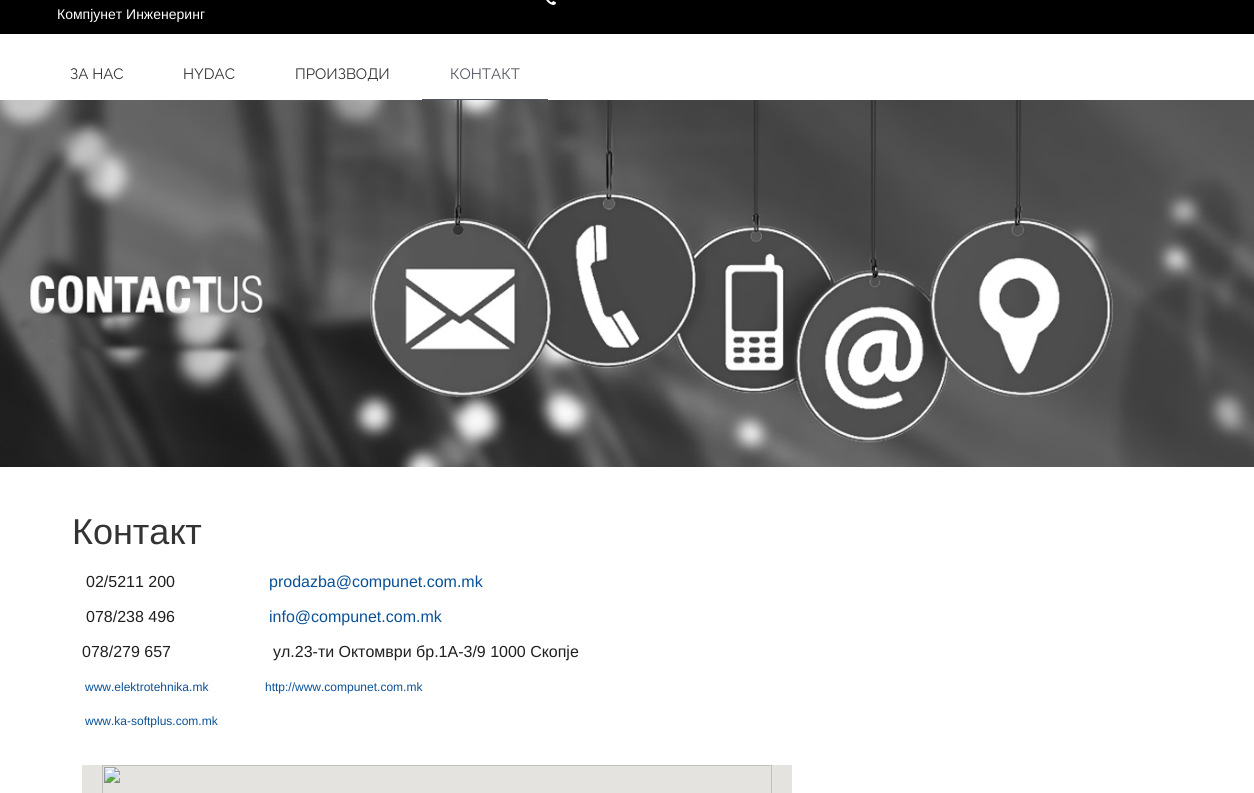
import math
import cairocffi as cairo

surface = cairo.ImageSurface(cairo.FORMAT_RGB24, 1254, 793)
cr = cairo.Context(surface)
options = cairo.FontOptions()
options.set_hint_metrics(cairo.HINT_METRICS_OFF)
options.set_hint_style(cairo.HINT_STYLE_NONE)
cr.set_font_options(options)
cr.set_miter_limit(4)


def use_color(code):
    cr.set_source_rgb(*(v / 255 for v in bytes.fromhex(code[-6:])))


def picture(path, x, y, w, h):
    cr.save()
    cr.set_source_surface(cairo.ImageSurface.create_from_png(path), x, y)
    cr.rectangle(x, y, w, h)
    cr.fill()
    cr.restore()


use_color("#ffffff")
cr.paint()
use_color("#000000")
cr.rectangle(0, 0, 1254, 34)
cr.fill()
picture("img1.png", 546, 0, 10, 5)
cr.select_font_face("Liberation Sans")
cr.set_font_size(14)
use_color("#ffffff")
cr.move_to(57, 19)
cr.show_text("Компјунет Инженеринг")
cr.select_font_face("Raleway")
cr.set_font_size(15)
use_color("#333333")
cr.move_to(70, 79)
cr.show_text("ЗА НАС")
cr.move_to(183, 79)
cr.show_text("HYDAC")
cr.move_to(295, 79)
cr.show_text("ПРОИЗВОДИ")
use_color("#525564")
cr.rectangle(422, 99, 126, 1)
cr.fill()
cr.move_to(450, 79)
cr.show_text("КОНТАКТ")
picture("img2.png", 0, 100, 1254, 367)
cr.select_font_face("Liberation Sans")
cr.set_font_size(36)
use_color("#333333")
cr.move_to(72, 544)
cr.show_text("Контакт")
cr.set_font_size(16)
use_color("#1f1f1f")
cr.move_to(86, 587)
cr.show_text("02/5211 200")
use_color("#095197")
cr.move_to(269, 587)
cr.show_text("prodazba@compunet.com.mk")
use_color("#1f1f1f")
cr.move_to(86, 622)
cr.show_text("078/238 496")
use_color("#095197")
cr.move_to(269, 622)
cr.show_text("info@compunet.com.mk")
use_color("#1f1f1f")
cr.move_to(82, 657)
cr.show_text("078/279 657")
cr.move_to(273, 657)
cr.show_text("ул.23-ти Октомври бр.1А-3/9 1000 Скопје")
cr.set_font_size(12)
use_color("#095197")
cr.move_to(85, 691)
cr.show_text("www.elektrotehnika.mk")
cr.move_to(265, 691)
cr.show_text("http://www.compunet.com.mk")
cr.move_to(85, 725)
cr.show_text("www.ka-softplus.com.mk")
picture("img3.png", 82, 765, 710, 28)
surface.write_to_png("result.png")
